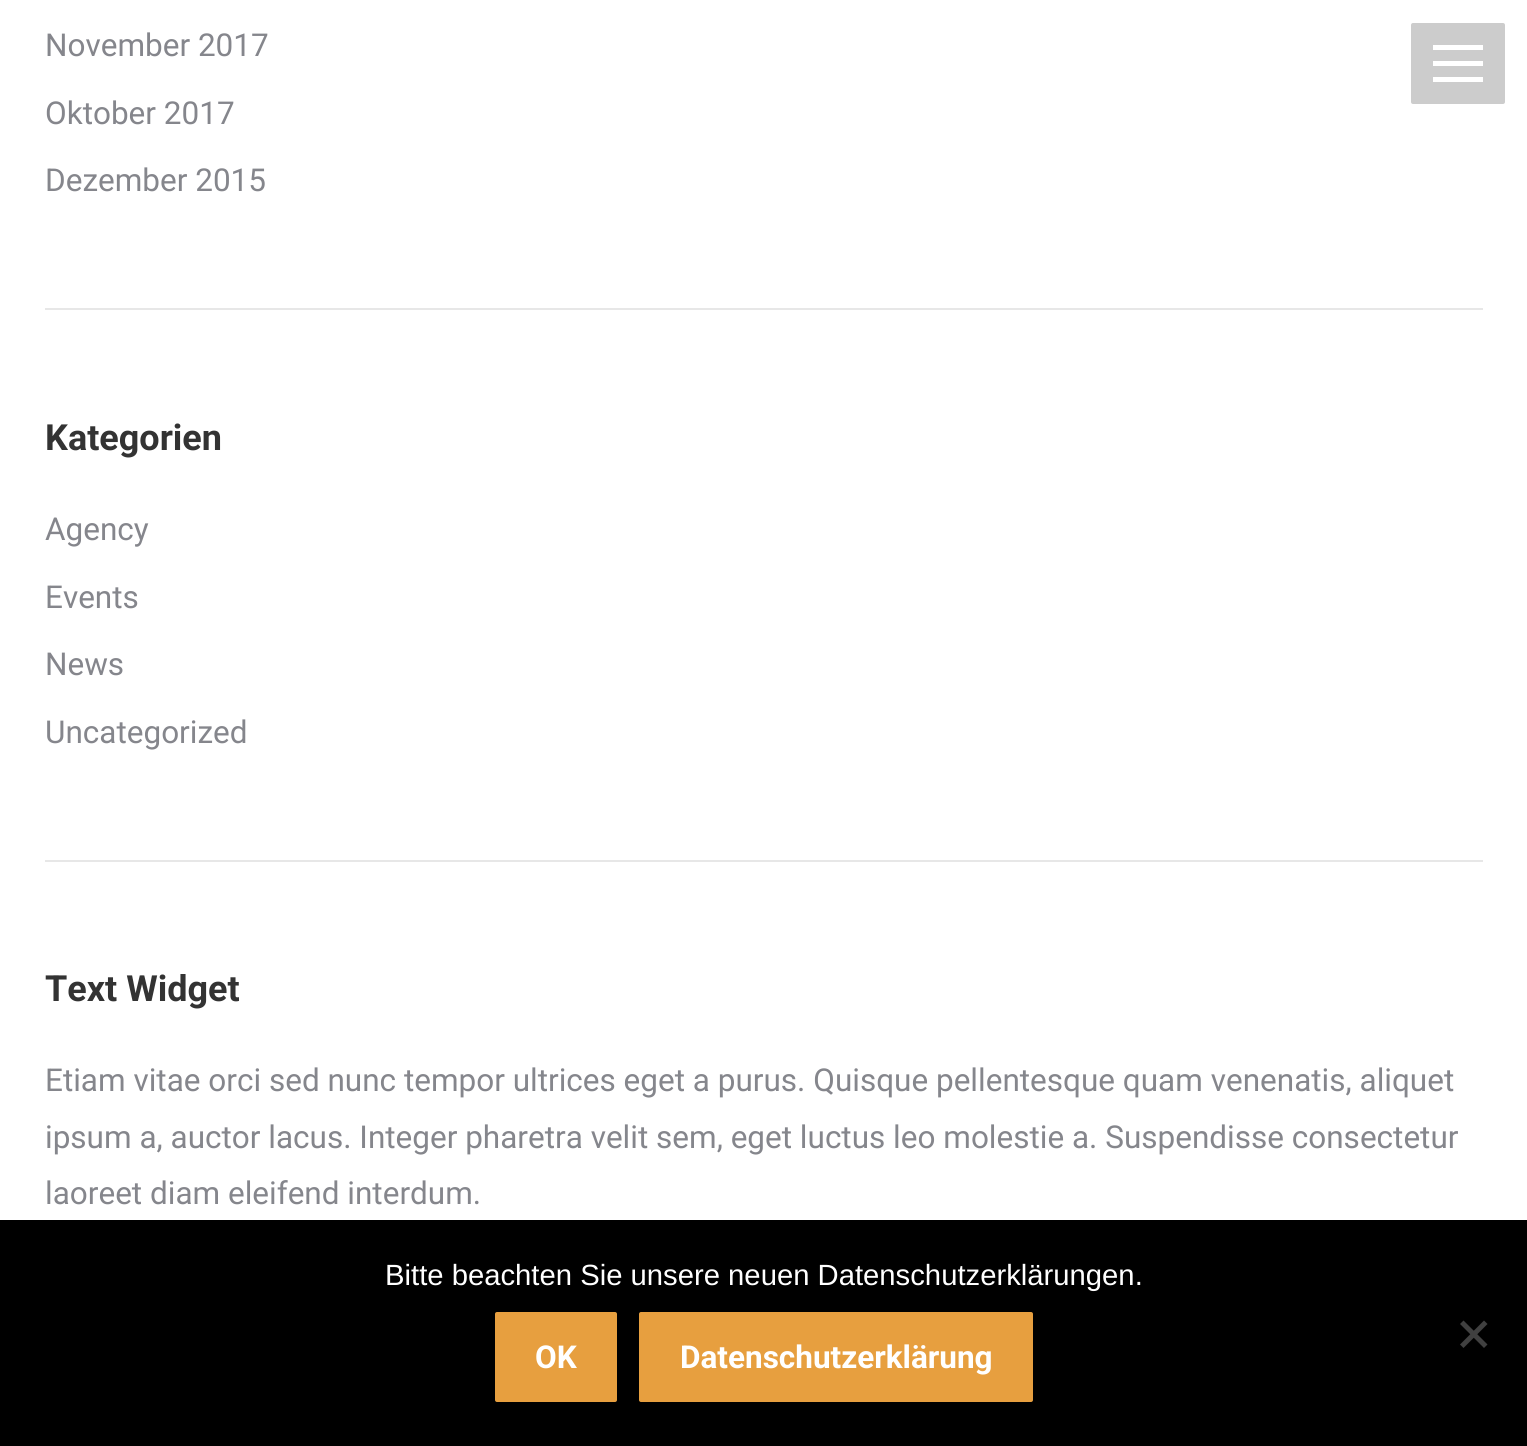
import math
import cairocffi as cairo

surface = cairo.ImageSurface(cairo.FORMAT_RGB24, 1527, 1446)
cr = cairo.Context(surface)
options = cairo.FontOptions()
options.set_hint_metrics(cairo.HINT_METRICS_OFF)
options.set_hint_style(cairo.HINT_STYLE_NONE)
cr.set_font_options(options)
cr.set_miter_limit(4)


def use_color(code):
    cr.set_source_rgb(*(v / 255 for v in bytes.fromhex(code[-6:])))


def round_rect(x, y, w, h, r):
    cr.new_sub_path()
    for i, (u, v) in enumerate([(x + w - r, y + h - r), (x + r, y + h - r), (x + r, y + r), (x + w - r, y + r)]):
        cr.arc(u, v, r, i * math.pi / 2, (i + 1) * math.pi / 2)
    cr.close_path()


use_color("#ffffff")
cr.paint()
use_color("#cccccc")
round_rect(1411, 23, 94, 81, 2)
cr.fill()
use_color("#ffffff")
cr.rectangle(1433, 45, 50, 5)
cr.fill()
cr.rectangle(1433, 61, 50, 5)
cr.fill()
cr.rectangle(1433, 77, 50, 5)
cr.fill()
cr.select_font_face("Roboto")
cr.set_font_size(31.5)
use_color("#85868c")
cr.move_to(45, 56)
cr.show_text("November 2017")
cr.move_to(45, 124)
cr.show_text("Oktober 2017")
cr.move_to(45, 191)
cr.show_text("Dezember 2015")
use_color("#e7e7e7")
cr.rectangle(45, 308, 1438, 2)
cr.fill()
cr.select_font_face("Roboto", cairo.FONT_SLANT_NORMAL, cairo.FONT_WEIGHT_BOLD)
cr.set_font_size(36)
use_color("#333333")
cr.move_to(45, 450)
cr.show_text("Kategorien")
cr.select_font_face("Roboto")
cr.set_font_size(31.5)
use_color("#85868c")
cr.move_to(45, 540)
cr.show_text("Agency")
cr.move_to(45, 608)
cr.show_text("Events")
cr.move_to(45, 675)
cr.show_text("News")
cr.move_to(45, 743)
cr.show_text("Uncategorized")
use_color("#e7e7e7")
cr.rectangle(45, 860, 1438, 2)
cr.fill()
cr.select_font_face("Roboto", cairo.FONT_SLANT_NORMAL, cairo.FONT_WEIGHT_BOLD)
cr.set_font_size(36)
use_color("#333333")
cr.move_to(45, 1001)
cr.show_text("Text Widget")
cr.select_font_face("Roboto")
cr.set_font_size(31.5)
use_color("#85868c")
cr.move_to(45, 1091)
cr.show_text("Etiam vitae orci sed nunc tempor ultrices eget a purus. Quisque pellentesque quam venenatis, aliquet")
cr.move_to(45, 1148)
cr.show_text("ipsum a, auctor lacus. Integer pharetra velit sem, eget luctus leo molestie a. Suspendisse consectetur")
cr.move_to(45, 1204)
cr.show_text("laoreet diam eleifend interdum.")
use_color("#000000")
cr.rectangle(0, 1220, 1527, 226)
cr.fill()
cr.select_font_face("Liberation Sans")
cr.set_font_size(29.25)
use_color("#ffffff")
cr.move_to(385, 1285)
cr.show_text("Bitte beachten Sie unsere neuen Datenschutzerklärungen.")
use_color("#404040")
cr.new_path()
cr.move_to(1484, 1320.5)
cr.line_to(1487.5, 1324)
cr.line_to(1463.5, 1348)
cr.line_to(1460, 1344.5)
cr.close_path()
cr.fill()
cr.new_path()
cr.move_to(1460, 1324)
cr.line_to(1463.5, 1320.5)
cr.line_to(1487.5, 1344.5)
cr.line_to(1484, 1348)
cr.close_path()
cr.fill()
use_color("#e79f3f")
round_rect(495, 1312, 122, 90, 2)
cr.fill()
cr.select_font_face("Roboto", cairo.FONT_SLANT_NORMAL, cairo.FONT_WEIGHT_BOLD)
cr.set_font_size(31.5)
use_color("#ffffff")
cr.move_to(535, 1368)
cr.show_text("OK")
use_color("#e79f3f")
round_rect(639, 1312, 394, 90, 2)
cr.fill()
use_color("#ffffff")
cr.move_to(680, 1368)
cr.show_text("Datenschutzerklärung")
surface.write_to_png("result.png")
